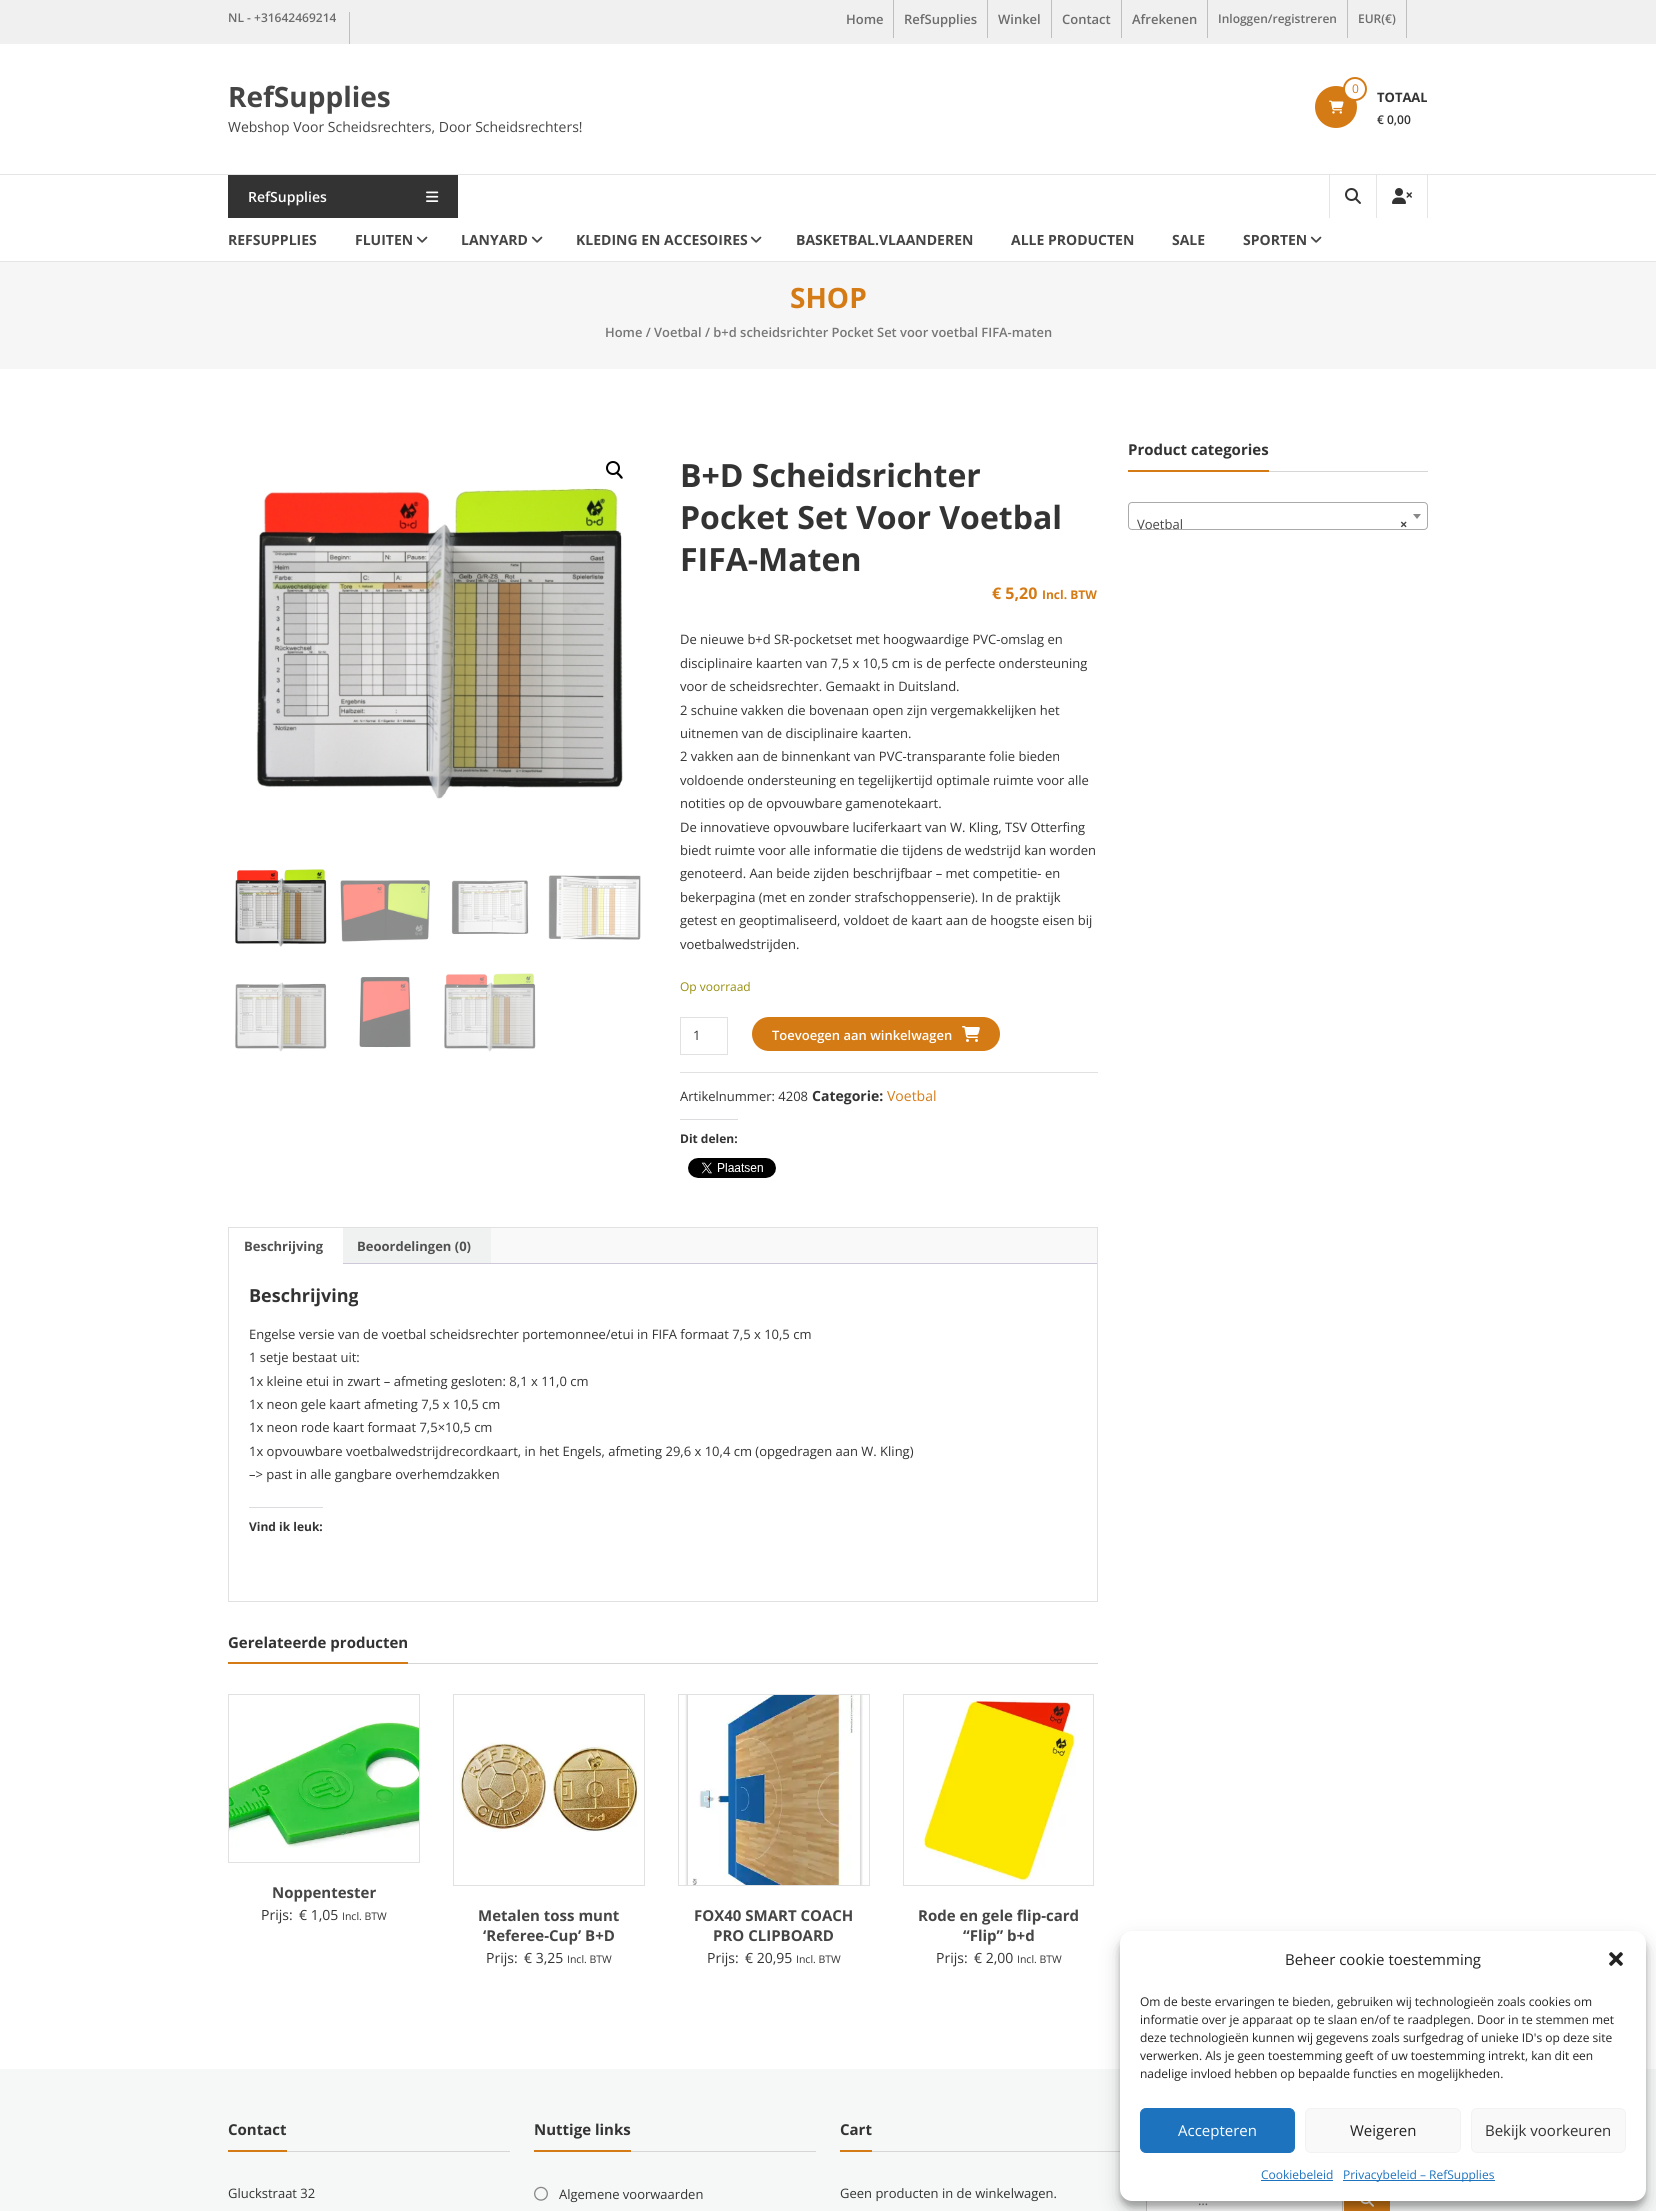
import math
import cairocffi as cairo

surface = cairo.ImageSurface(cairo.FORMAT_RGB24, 1656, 2211)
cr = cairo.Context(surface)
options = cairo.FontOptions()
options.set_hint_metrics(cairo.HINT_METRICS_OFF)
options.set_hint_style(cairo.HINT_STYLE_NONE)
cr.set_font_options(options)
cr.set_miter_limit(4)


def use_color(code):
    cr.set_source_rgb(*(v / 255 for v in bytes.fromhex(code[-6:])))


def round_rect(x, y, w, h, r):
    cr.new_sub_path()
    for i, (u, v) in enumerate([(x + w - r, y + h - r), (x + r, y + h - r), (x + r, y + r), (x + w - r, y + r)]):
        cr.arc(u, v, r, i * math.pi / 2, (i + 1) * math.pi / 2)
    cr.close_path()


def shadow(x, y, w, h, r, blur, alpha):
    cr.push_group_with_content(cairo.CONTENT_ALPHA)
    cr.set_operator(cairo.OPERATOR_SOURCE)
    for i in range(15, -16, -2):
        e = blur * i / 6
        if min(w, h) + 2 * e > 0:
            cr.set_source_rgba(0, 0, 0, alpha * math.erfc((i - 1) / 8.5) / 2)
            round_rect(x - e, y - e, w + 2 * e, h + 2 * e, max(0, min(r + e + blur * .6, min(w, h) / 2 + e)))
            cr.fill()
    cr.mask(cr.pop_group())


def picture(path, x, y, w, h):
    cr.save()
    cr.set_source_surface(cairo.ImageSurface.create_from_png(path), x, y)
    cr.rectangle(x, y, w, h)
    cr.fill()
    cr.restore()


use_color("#ffffff")
cr.paint()
use_color("#f0f0f0")
cr.rectangle(0, 0, 1656, 44)
cr.fill()
use_color("#c0bfbf")
cr.rectangle(349, 12, 1, 32)
cr.fill()
cr.select_font_face("Open Sans SemiBold")
cr.set_font_size(12)
use_color("#6d6c6c")
cr.move_to(228, 22)
cr.show_text("NL - +31642469214")
use_color("#c0bfbf")
cr.rectangle(893, 0, 1, 38)
cr.fill()
cr.set_font_size(13)
use_color("#6d6c6c")
cr.move_to(846, 24)
cr.show_text("Home")
use_color("#c0bfbf")
cr.rectangle(987, 0, 1, 38)
cr.fill()
use_color("#6d6c6c")
cr.move_to(904, 24)
cr.show_text("RefSupplies")
use_color("#c0bfbf")
cr.rectangle(1051, 0, 1, 38)
cr.fill()
use_color("#6d6c6c")
cr.move_to(998, 24)
cr.show_text("Winkel")
use_color("#c0bfbf")
cr.rectangle(1121, 0, 1, 38)
cr.fill()
use_color("#6d6c6c")
cr.move_to(1062, 24)
cr.show_text("Contact")
use_color("#c0bfbf")
cr.rectangle(1207, 0, 1, 38)
cr.fill()
use_color("#6d6c6c")
cr.move_to(1132, 24)
cr.show_text("Afrekenen")
use_color("#c0bfbf")
cr.rectangle(1347, 0, 1, 38)
cr.fill()
cr.set_font_size(12)
use_color("#6d6c6c")
cr.move_to(1218, 23)
cr.show_text("Inloggen/registreren")
use_color("#c0bfbf")
cr.rectangle(1406, 0, 1, 38)
cr.fill()
use_color("#6d6c6c")
cr.move_to(1358, 23)
cr.show_text("EUR(€)")
cr.select_font_face("Open Sans", cairo.FONT_SLANT_NORMAL, cairo.FONT_WEIGHT_BOLD)
cr.set_font_size(28)
use_color("#454545")
cr.move_to(228, 107)
cr.show_text("RefSupplies")
cr.select_font_face("Open Sans")
cr.set_font_size(14)
cr.move_to(228, 132)
cr.show_text("Webshop Voor Scheidsrechters, Door Scheidsrechters!")
use_color("#d57b16")
cr.new_path()
cr.arc(1336, 107, 21, 0, 2 * math.pi)
cr.fill()
picture("img1.png", 1329, 100, 15, 14)
use_color("#ffffff")
cr.arc(1355, 89, 11, 0, 2 * math.pi)
cr.fill_preserve()
use_color("#d57b16")
cr.stroke()
cr.set_font_size(12)
cr.move_to(1352, 93)
cr.show_text("0")
cr.select_font_face("Open Sans", cairo.FONT_SLANT_NORMAL, cairo.FONT_WEIGHT_BOLD)
cr.set_font_size(13)
use_color("#333333")
cr.move_to(1377, 102)
cr.show_text("TOTAAL")
cr.select_font_face("Open Sans SemiBold")
cr.set_font_size(12)
cr.move_to(1377, 124)
cr.show_text("€ 0,00")
use_color("#e5e5e5")
cr.rectangle(0, 174, 1656, 1)
cr.fill()
cr.rectangle(0, 261, 1656, 1)
cr.fill()
use_color("#333333")
cr.rectangle(228, 175, 230, 43)
cr.fill()
cr.set_font_size(14)
use_color("#ffffff")
cr.move_to(248, 202)
cr.show_text("RefSupplies")
picture("img2.png", 426, 191, 13, 11)
use_color("#e5e5e5")
cr.rectangle(1329, 175, 1, 43)
cr.fill()
picture("img3.png", 1345, 188, 16, 16)
cr.rectangle(1427, 175, 1, 43)
cr.fill()
cr.rectangle(1376, 175, 1, 43)
cr.fill()
picture("img4.png", 1392, 188, 20, 16)
cr.select_font_face("Open Sans", cairo.FONT_SLANT_NORMAL, cairo.FONT_WEIGHT_BOLD)
use_color("#454545")
cr.move_to(228, 245)
cr.show_text("REFSUPPLIES")
cr.move_to(355, 245)
cr.show_text("FLUITEN")
picture("img5.png", 416, 236, 12, 7)
cr.move_to(461, 245)
cr.show_text("LANYARD")
picture("img5.png", 531, 236, 12, 7)
cr.move_to(576, 245)
cr.show_text("KLEDING EN ACCESOIRES")
picture("img5.png", 750, 236, 12, 7)
cr.move_to(796, 245)
cr.show_text("BASKETBAL.VLAANDEREN")
cr.move_to(1011, 245)
cr.show_text("ALLE PRODUCTEN")
cr.move_to(1172, 245)
cr.show_text("SALE")
cr.move_to(1243, 245)
cr.show_text("SPORTEN")
picture("img5.png", 1310, 236, 12, 7)
use_color("#f6f6f6")
cr.rectangle(0, 262, 1656, 107)
cr.fill()
cr.set_font_size(28)
use_color("#d57b16")
cr.move_to(790, 308)
cr.show_text("SHOP")
cr.select_font_face("Open Sans SemiBold")
cr.set_font_size(12.9)
use_color("#767676")
cr.move_to(605, 337)
cr.show_text("Home / Voetbal / b+d scheidsrichter Pocket Set voor voetbal FIFA-maten")
cr.new_path()
cr.arc(613, 468, 6, 0, 2 * math.pi)
use_color("#000000")
cr.stroke()
cr.new_path()
cr.move_to(617, 472.5)
cr.curve_to(618, 471.5, 619.5, 474, 620.5, 474.5)
cr.curve_to(621, 475.5, 623.5, 477, 622.5, 478.5)
cr.curve_to(621, 479.5, 619.5, 477, 619, 476)
cr.curve_to(618.5, 475.5, 615.5, 474, 617, 472.5)
cr.close_path()
cr.fill()
picture("img6.png", 256, 488, 367, 311)
picture("img7.png", 235, 869, 92, 78)
picture("img8.png", 340, 880, 90, 62)
picture("img9.png", 451, 880, 78, 55)
picture("img10.png", 548, 875, 93, 65)
picture("img11.png", 235, 982, 92, 70)
picture("img12.png", 359, 977, 52, 71)
picture("img13.png", 444, 973, 92, 79)
cr.select_font_face("Open Sans", cairo.FONT_SLANT_NORMAL, cairo.FONT_WEIGHT_BOLD)
cr.set_font_size(32)
use_color("#333333")
cr.move_to(680, 487)
cr.show_text("B+D Scheidsrichter")
cr.move_to(680, 529)
cr.show_text("Pocket Set Voor Voetbal")
cr.move_to(680, 571)
cr.show_text("FIFA-Maten")
cr.set_font_size(16)
use_color("#d57b16")
cr.move_to(992, 599)
cr.show_text("€ 5,20")
cr.set_font_size(12)
cr.move_to(1042, 599)
cr.show_text("Incl. BTW")
cr.select_font_face("Open Sans")
cr.set_font_size(13)
use_color("#333333")
cr.move_to(680, 644)
cr.show_text("De nieuwe b+d SR-pocketset met hoogwaardige PVC-omslag en")
cr.move_to(680, 668)
cr.show_text("disciplinaire kaarten van 7,5 x 10,5 cm is de perfecte ondersteuning")
cr.move_to(680, 691)
cr.show_text("voor de scheidsrechter. Gemaakt in Duitsland.")
cr.move_to(680, 715)
cr.show_text("2 schuine vakken die bovenaan open zijn vergemakkelijken het")
cr.move_to(680, 738)
cr.show_text("uitnemen van de disciplinaire kaarten.")
cr.move_to(680, 761)
cr.show_text("2 vakken aan de binnenkant van PVC-transparante folie bieden")
cr.move_to(680, 785)
cr.show_text("voldoende ondersteuning en tegelijkertijd optimale ruimte voor alle")
cr.move_to(680, 808)
cr.show_text("notities op de opvouwbare gamenotekaart.")
cr.move_to(680, 832)
cr.show_text("De innovatieve opvouwbare luciferkaart van W. Kling, TSV Otterfing")
cr.move_to(680, 855)
cr.show_text("biedt ruimte voor alle informatie die tijdens de wedstrijd kan worden")
cr.move_to(680, 878)
cr.show_text("genoteerd. Aan beide zijden beschrijfbaar – met competitie- en")
cr.move_to(680, 902)
cr.show_text("bekerpagina (met en zonder strafschoppenserie). In de praktijk")
cr.move_to(680, 925)
cr.show_text("getest en geoptimaliseerd, voldoet de kaart aan de hoogste eisen bij")
cr.move_to(680, 949)
cr.show_text("voetbalwedstrijden.")
cr.set_font_size(12)
use_color("#958e09")
cr.move_to(680, 991)
cr.show_text("Op voorraad")
cr.rectangle(680.5, 1017.5, 47, 37)
use_color("#e1e1e1")
cr.set_line_width(1)
cr.stroke()
cr.set_font_size(13)
use_color("#333333")
cr.move_to(693, 1040)
cr.show_text("1")
use_color("#d57b16")
round_rect(752, 1017, 248, 34, 17)
cr.fill()
cr.select_font_face("Open Sans SemiBold")
use_color("#ffffff")
cr.move_to(772, 1040)
cr.show_text("Toevoegen aan winkelwagen")
picture("img14.png", 962, 1026, 18, 16)
use_color("#e1e1e1")
cr.rectangle(680, 1072, 418, 1)
cr.fill()
cr.select_font_face("Open Sans")
use_color("#333333")
cr.move_to(680, 1101)
cr.show_text("Artikelnummer: 4208")
cr.select_font_face("Open Sans", cairo.FONT_SLANT_NORMAL, cairo.FONT_WEIGHT_BOLD)
cr.set_font_size(14)
cr.move_to(812, 1101)
cr.show_text("Categorie:")
cr.select_font_face("Open Sans")
use_color("#d57b16")
cr.move_to(887, 1101)
cr.show_text("Voetbal")
use_color("#dcdcde")
cr.rectangle(680, 1119, 58, 1)
cr.fill()
cr.select_font_face("Open Sans", cairo.FONT_SLANT_NORMAL, cairo.FONT_WEIGHT_BOLD)
cr.set_font_size(12)
use_color("#333333")
cr.move_to(680, 1143)
cr.show_text("Dit delen:")
picture("img15.png", 688, 1158, 88, 20)
cr.rectangle(228.5, 1227.5, 869, 374)
use_color("#e1e1e1")
cr.stroke()
use_color("#f9f9f9")
cr.rectangle(491, 1228, 606, 35)
cr.fill()
cr.set_font_size(13)
use_color("#515151")
cr.move_to(244, 1251)
cr.show_text("Beschrijving")
use_color("#f0f2f1")
cr.rectangle(343, 1228, 148, 35)
cr.fill()
use_color("#515151")
cr.move_to(357, 1251)
cr.show_text("Beoordelingen (0)")
use_color("#cfc8d8")
cr.rectangle(343, 1263, 754, 1)
cr.fill()
cr.set_font_size(18)
use_color("#333333")
cr.move_to(249, 1302)
cr.show_text("Beschrijving")
cr.select_font_face("Open Sans")
cr.set_font_size(13)
cr.move_to(249, 1339)
cr.show_text("Engelse versie van de voetbal scheidsrechter portemonnee/etui in FIFA formaat 7,5 x 10,5 cm")
cr.move_to(249, 1362)
cr.show_text("1 setje bestaat uit:")
cr.move_to(249, 1386)
cr.show_text("1x kleine etui in zwart – afmeting gesloten: 8,1 x 11,0 cm")
cr.move_to(249, 1409)
cr.show_text("1x neon gele kaart afmeting 7,5 x 10,5 cm")
cr.move_to(249, 1432)
cr.show_text("1x neon rode kaart formaat 7,5×10,5 cm")
cr.move_to(249, 1456)
cr.show_text("1x opvouwbare voetbalwedstrijdrecordkaart, in het Engels, afmeting 29,6 x 10,4 cm (opgedragen aan W. Kling)")
cr.move_to(249, 1479)
cr.show_text("–> past in alle gangbare overhemdzakken")
use_color("#dcdcde")
cr.rectangle(249, 1507, 74, 1)
cr.fill()
cr.select_font_face("Open Sans", cairo.FONT_SLANT_NORMAL, cairo.FONT_WEIGHT_BOLD)
cr.set_font_size(12)
use_color("#333333")
cr.move_to(249, 1531)
cr.show_text("Vind ik leuk:")
use_color("#d6d6d6")
cr.rectangle(408, 1663, 690, 1)
cr.fill()
use_color("#d57b16")
cr.rectangle(228, 1662, 180, 2)
cr.fill()
cr.set_font_size(15)
use_color("#333333")
cr.move_to(228, 1648)
cr.show_text("Gerelateerde producten")
cr.rectangle(228.5, 1694.5, 191, 168)
use_color("#e1e1e1")
cr.stroke()
picture("img16.png", 229, 1720, 190, 128)
use_color("#454545")
cr.move_to(272, 1898)
cr.show_text("Noppentester")
cr.select_font_face("Open Sans")
cr.set_font_size(14)
use_color("#333333")
cr.move_to(261, 1920)
cr.show_text("Prijs:")
cr.move_to(299, 1920)
cr.show_text("€ 1,05")
cr.set_font_size(10.5)
cr.move_to(342, 1920)
cr.show_text("Incl. BTW")
cr.rectangle(453.5, 1694.5, 191, 191)
use_color("#e1e1e1")
cr.stroke()
picture("img17.png", 459, 1742, 180, 90)
cr.select_font_face("Open Sans", cairo.FONT_SLANT_NORMAL, cairo.FONT_WEIGHT_BOLD)
cr.set_font_size(15)
use_color("#454545")
cr.move_to(478, 1921)
cr.show_text("Metalen toss munt")
cr.move_to(483, 1941)
cr.show_text("‘Referee-Cup’ B+D")
cr.select_font_face("Open Sans")
cr.set_font_size(14)
use_color("#333333")
cr.move_to(486, 1963)
cr.show_text("Prijs:")
cr.move_to(524, 1963)
cr.show_text("€ 3,25")
cr.set_font_size(10.5)
cr.move_to(567, 1963)
cr.show_text("Incl. BTW")
cr.rectangle(678.5, 1694.5, 191, 191)
use_color("#e1e1e1")
cr.stroke()
picture("img18.png", 685, 1695, 178, 190)
cr.select_font_face("Open Sans", cairo.FONT_SLANT_NORMAL, cairo.FONT_WEIGHT_BOLD)
cr.set_font_size(15)
use_color("#454545")
cr.move_to(694, 1921)
cr.show_text("FOX40 SMART COACH")
cr.move_to(713, 1941)
cr.show_text("PRO CLIPBOARD")
cr.select_font_face("Open Sans")
cr.set_font_size(14)
use_color("#333333")
cr.move_to(707, 1963)
cr.show_text("Prijs:")
cr.move_to(745, 1963)
cr.show_text("€ 20,95")
cr.set_font_size(10.5)
cr.move_to(796, 1963)
cr.show_text("Incl. BTW")
cr.rectangle(903.5, 1694.5, 190, 191)
use_color("#e1e1e1")
cr.stroke()
picture("img19.png", 923, 1700, 153, 182)
cr.select_font_face("Open Sans", cairo.FONT_SLANT_NORMAL, cairo.FONT_WEIGHT_BOLD)
cr.set_font_size(15)
use_color("#454545")
cr.move_to(918, 1921)
cr.show_text("Rode en gele flip-card")
cr.move_to(963, 1941)
cr.show_text("“Flip” b+d")
cr.select_font_face("Open Sans")
cr.set_font_size(14)
use_color("#333333")
cr.move_to(936, 1963)
cr.show_text("Prijs:")
cr.move_to(974, 1963)
cr.show_text("€ 2,00")
cr.set_font_size(10.5)
cr.move_to(1017, 1963)
cr.show_text("Incl. BTW")
use_color("#d6d6d6")
cr.rectangle(1269, 471, 159, 1)
cr.fill()
use_color("#d57b16")
cr.rectangle(1128, 470, 141, 2)
cr.fill()
cr.select_font_face("Open Sans", cairo.FONT_SLANT_NORMAL, cairo.FONT_WEIGHT_BOLD)
cr.set_font_size(15)
use_color("#333333")
cr.move_to(1128, 455)
cr.show_text("Product categories")
round_rect(1128.5, 502.5, 299, 27, 3.5)
use_color("#aaaaaa")
cr.stroke()
use_color("#888888")
cr.new_path()
cr.move_to(1413, 514)
cr.line_to(1421, 514)
cr.line_to(1417, 519)
cr.close_path()
cr.fill()
cr.select_font_face("Open Sans")
cr.set_font_size(13)
use_color("#454545")
cr.move_to(1137, 529)
cr.show_text("Voetbal")
cr.select_font_face("Open Sans", cairo.FONT_SLANT_NORMAL, cairo.FONT_WEIGHT_BOLD)
cr.move_to(1400, 529)
cr.show_text("×")
use_color("#f6f7f7")
cr.rectangle(0, 2069, 1656, 142)
cr.fill()
use_color("#d6d6d6")
cr.rectangle(287, 2151, 223, 1)
cr.fill()
use_color("#d57b16")
cr.rectangle(228, 2150, 59, 2)
cr.fill()
cr.set_font_size(15)
use_color("#333333")
cr.move_to(228, 2135)
cr.show_text("Contact")
cr.select_font_face("Open Sans")
cr.set_font_size(13)
cr.move_to(228, 2198)
cr.show_text("Gluckstraat 32")
use_color("#d6d6d6")
cr.rectangle(631, 2151, 185, 1)
cr.fill()
use_color("#d57b16")
cr.rectangle(534, 2150, 97, 2)
cr.fill()
cr.select_font_face("Open Sans", cairo.FONT_SLANT_NORMAL, cairo.FONT_WEIGHT_BOLD)
cr.set_font_size(15)
use_color("#333333")
cr.move_to(534, 2135)
cr.show_text("Nuttige links")
picture("img20.png", 534, 2186, 14, 15)
cr.select_font_face("Open Sans")
cr.set_font_size(13)
cr.move_to(559, 2199)
cr.show_text("Algemene voorwaarden")
use_color("#d6d6d6")
cr.rectangle(872, 2151, 250, 1)
cr.fill()
use_color("#d57b16")
cr.rectangle(840, 2150, 32, 2)
cr.fill()
cr.select_font_face("Open Sans", cairo.FONT_SLANT_NORMAL, cairo.FONT_WEIGHT_BOLD)
cr.set_font_size(15)
use_color("#333333")
cr.move_to(840, 2135)
cr.show_text("Cart")
cr.select_font_face("Open Sans")
cr.set_font_size(13)
cr.move_to(840, 2198)
cr.show_text("Geen producten in de winkelwagen.")
use_color("#ffffff")
cr.rectangle(1147, 2201, 195, 10)
cr.fill()
cr.rectangle(1146.5, 2182.5, 196, 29)
use_color("#cccccc")
cr.stroke()
use_color("#767676")
cr.move_to(1198, 2205)
cr.show_text("…")
use_color("#d57b16")
cr.rectangle(1344, 2201, 46, 10)
cr.fill()
picture("img21.png", 1360, 2201, 14, 6)
use_color("#000000")
shadow(1120, 1937, 526, 270, 12, 3, 0.23)
shadow(1120, 1941, 526, 270, 12, 10, 0.19)
use_color("#ffffff")
round_rect(1120, 1931, 526, 270, 12)
cr.fill()
cr.set_font_size(15)
use_color("#222222")
cr.move_to(1285, 1965)
cr.show_text("Beheer cookie toestemming")
picture("img22.png", 1609, 1952, 14, 14)
cr.set_font_size(12)
cr.move_to(1140, 2006)
cr.show_text("Om de beste ervaringen te bieden, gebruiken wij technologieën zoals cookies om")
cr.move_to(1140, 2024)
cr.show_text("informatie over je apparaat op te slaan en/of te raadplegen. Door in te stemmen met")
cr.move_to(1140, 2042)
cr.show_text("deze technologieën kunnen wij gegevens zoals surfgedrag of unieke ID's op deze site")
cr.move_to(1140, 2060)
cr.show_text("verwerken. Als je geen toestemming geeft of uw toestemming intrekt, kan dit een")
cr.move_to(1140, 2078)
cr.show_text("nadelige invloed hebben op bepaalde functies en mogelijkheden.")
use_color("#1e73be")
round_rect(1140.5, 2108.5, 154, 44, 5.5)
cr.fill_preserve()
cr.stroke()
cr.set_font_size(15)
use_color("#ffffff")
cr.move_to(1178, 2136)
cr.show_text("Accepteren")
use_color("#f9f9f9")
round_rect(1305.5, 2108.5, 155, 44, 5.5)
cr.fill_preserve()
use_color("#f2f2f2")
cr.stroke()
use_color("#222222")
cr.move_to(1350, 2136)
cr.show_text("Weigeren")
use_color("#f9f9f9")
round_rect(1471.5, 2108.5, 154, 44, 5.5)
cr.fill_preserve()
use_color("#f2f2f2")
cr.stroke()
use_color("#333333")
cr.move_to(1485, 2136)
cr.show_text("Bekijk voorkeuren")
cr.set_font_size(12)
use_color("#1e73be")
cr.move_to(1261, 2179)
cr.show_text("Cookiebeleid")
cr.rectangle(1261, 2180, 72, 1)
cr.fill()
cr.rectangle(1343, 2180, 152, 1)
cr.fill()
cr.move_to(1343, 2179)
cr.show_text("Privacybeleid – RefSupplies")
surface.write_to_png("result.png")
